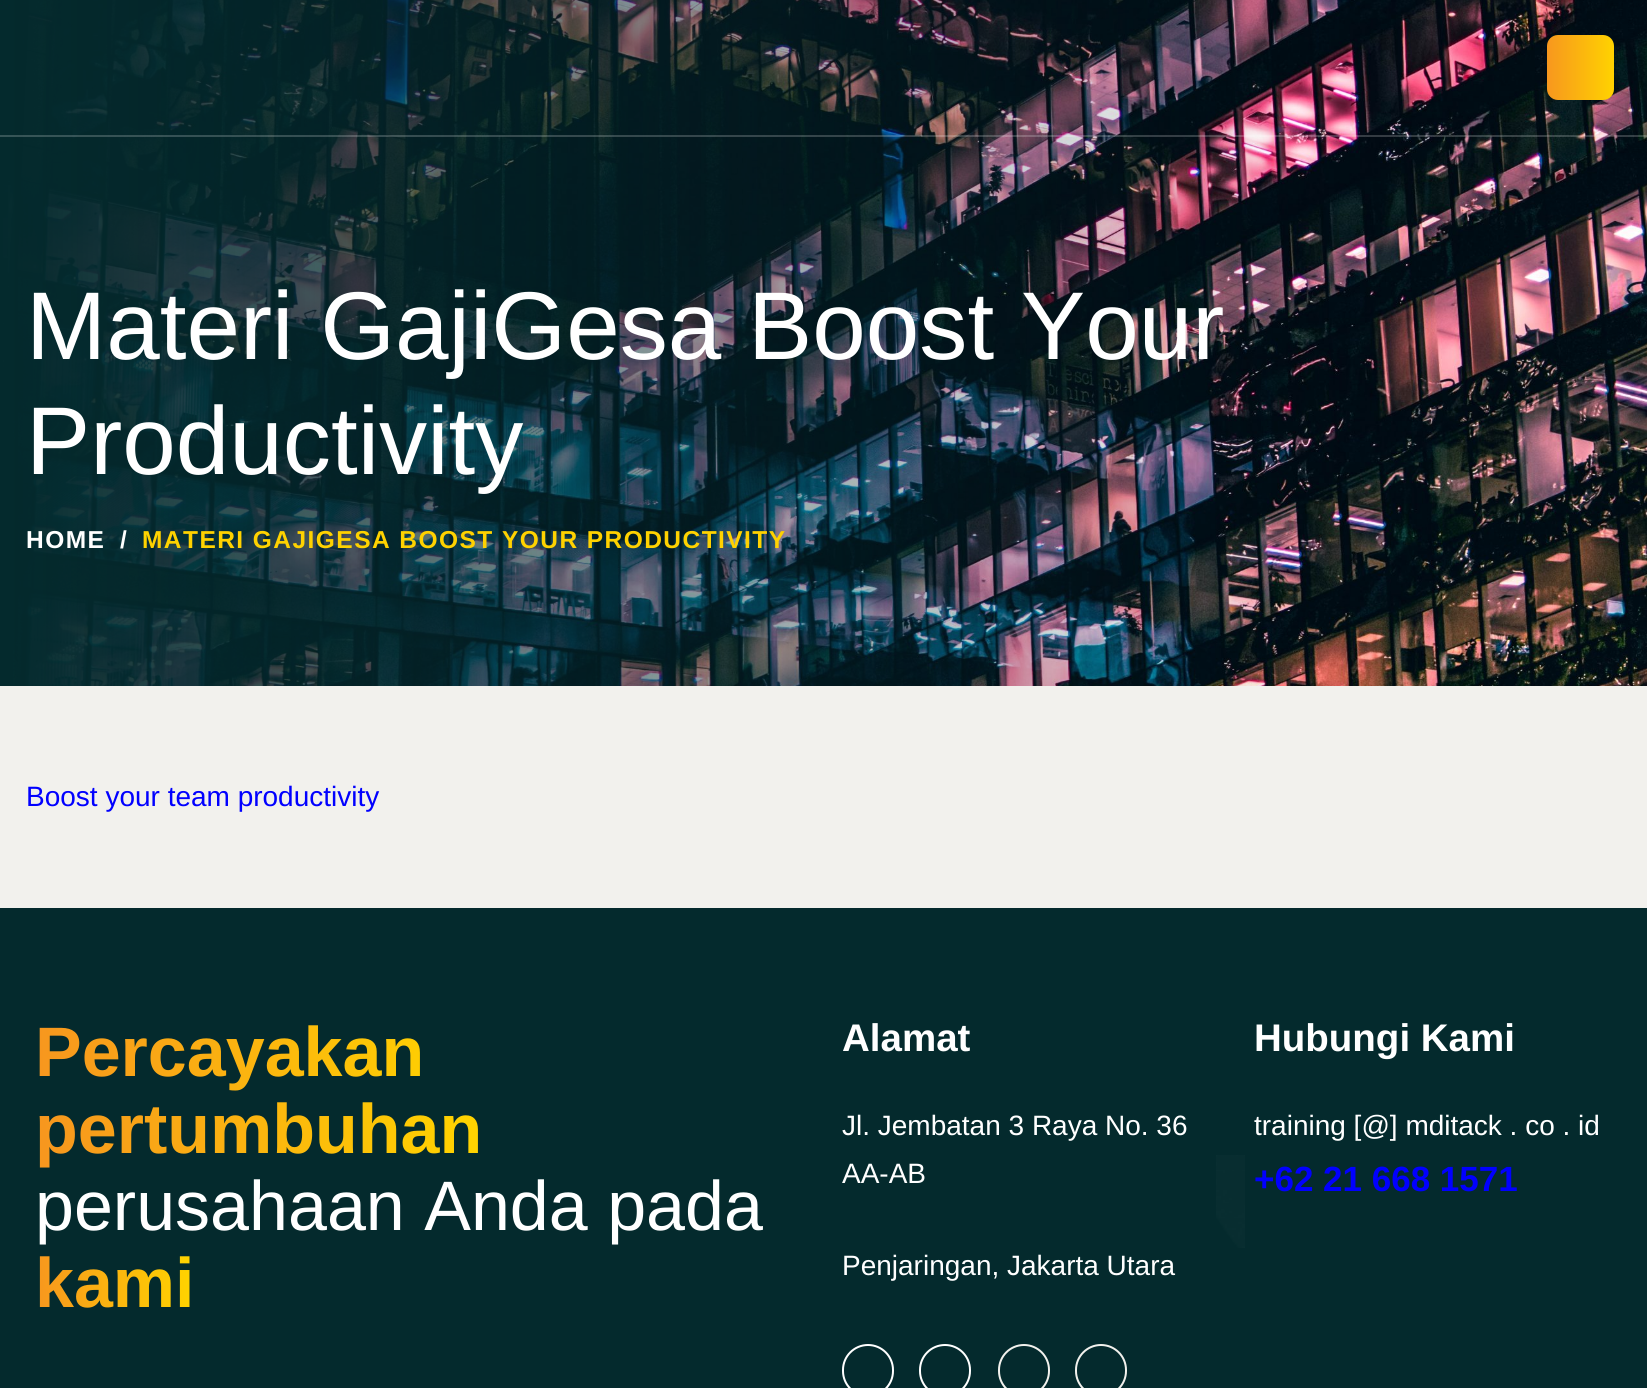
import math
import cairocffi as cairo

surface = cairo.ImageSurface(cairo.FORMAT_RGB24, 1647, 1388)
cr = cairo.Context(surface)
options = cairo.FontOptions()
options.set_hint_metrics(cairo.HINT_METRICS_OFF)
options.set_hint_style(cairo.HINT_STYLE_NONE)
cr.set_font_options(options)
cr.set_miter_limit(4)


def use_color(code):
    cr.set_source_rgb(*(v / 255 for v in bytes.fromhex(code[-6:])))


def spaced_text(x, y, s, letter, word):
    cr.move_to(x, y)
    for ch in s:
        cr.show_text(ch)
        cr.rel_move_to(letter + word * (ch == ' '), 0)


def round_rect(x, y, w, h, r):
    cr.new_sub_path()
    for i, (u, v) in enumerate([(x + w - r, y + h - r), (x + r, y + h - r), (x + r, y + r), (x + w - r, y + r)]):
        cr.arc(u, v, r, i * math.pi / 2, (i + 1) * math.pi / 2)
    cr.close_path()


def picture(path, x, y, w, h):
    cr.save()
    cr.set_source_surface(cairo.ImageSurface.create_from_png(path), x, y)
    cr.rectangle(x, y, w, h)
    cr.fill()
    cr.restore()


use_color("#f2f1ed")
cr.paint()
picture("img1.png", 0, 0, 1647, 686)
cr.set_source_rgba(1, 1, 1, 0.2)
cr.rectangle(0, 135, 1647, 2)
cr.fill()
gradient = cairo.LinearGradient(1547, 67, 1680, 67)
gradient.add_color_stop_rgba(0, 0.969, 0.592, 0.118, 1)
gradient.add_color_stop_rgba(0.5, 1, 0.824, 0, 1)
gradient.add_color_stop_rgba(1, 0.969, 0.592, 0.118, 1)
cr.set_source(gradient)
round_rect(1547, 35, 67, 65, 11)
cr.fill()
cr.select_font_face("Liberation Sans")
cr.set_font_size(96.25)
use_color("#ffffff")
cr.move_to(26, 359)
cr.show_text("Materi GajiGesa Boost Your")
cr.move_to(26, 474)
cr.show_text("Productivity")
cr.select_font_face("Liberation Sans", cairo.FONT_SLANT_NORMAL, cairo.FONT_WEIGHT_BOLD)
cr.set_font_size(24.5)
spaced_text(26, 548, "HOME", 1.45, 0)
spaced_text(120, 548, "/", 1.45, 0)
use_color("#ffd200")
spaced_text(142, 548, "MATERI GAJIGESA BOOST YOUR PRODUCTIVITY", 1.45, 0)
cr.select_font_face("Liberation Sans")
cr.set_font_size(28)
use_color("#0100ff")
cr.move_to(26, 806)
cr.show_text("Boost your team productivity")
use_color("#042a2d")
cr.rectangle(0, 908, 1647, 480)
cr.fill()
picture("img2.png", 1216, 1155, 29, 93)
cr.select_font_face("Liberation Sans", cairo.FONT_SLANT_NORMAL, cairo.FONT_WEIGHT_BOLD)
cr.set_font_size(70)
gradient = cairo.LinearGradient(485, 1080, 32, 1100)
gradient.add_color_stop_rgba(0.05, 1, 0.824, 0, 1)
gradient.add_color_stop_rgba(0.98, 0.969, 0.592, 0.118, 1)
cr.set_source(gradient)
cr.move_to(35, 1076)
cr.show_text("Percayakan")
cr.move_to(35, 1153)
cr.show_text("pertumbuhan")
cr.select_font_face("Liberation Sans")
use_color("#ffffff")
cr.move_to(35, 1230)
cr.show_text("perusahaan Anda pada")
cr.select_font_face("Liberation Sans", cairo.FONT_SLANT_NORMAL, cairo.FONT_WEIGHT_BOLD)
gradient = cairo.LinearGradient(196, 1279, 33, 1286)
gradient.add_color_stop_rgba(0.05, 1, 0.824, 0, 1)
gradient.add_color_stop_rgba(0.98, 0.969, 0.592, 0.118, 1)
cr.set_source(gradient)
cr.move_to(35, 1307)
cr.show_text("kami")
cr.set_font_size(38.5)
use_color("#ffffff")
cr.move_to(842, 1051)
cr.show_text("Alamat")
cr.select_font_face("Liberation Sans")
cr.set_font_size(28)
cr.move_to(842, 1135)
cr.show_text("Jl. Jembatan 3 Raya No. 36")
cr.move_to(842, 1183)
cr.show_text("AA-AB")
cr.move_to(842, 1275)
cr.show_text("Penjaringan, Jakarta Utara")
round_rect(843, 1345, 50, 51, 25)
cr.stroke()
round_rect(920, 1345, 50, 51, 25)
cr.stroke()
round_rect(999, 1345, 50, 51, 25)
use_color("#f2f1ed")
cr.stroke()
round_rect(1076, 1345, 50, 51, 25)
cr.stroke()
cr.select_font_face("Liberation Sans", cairo.FONT_SLANT_NORMAL, cairo.FONT_WEIGHT_BOLD)
cr.set_font_size(38.5)
use_color("#ffffff")
cr.move_to(1254, 1051)
cr.show_text("Hubungi Kami")
cr.select_font_face("Liberation Sans")
cr.set_font_size(28)
cr.move_to(1254, 1135)
cr.show_text("training [@] mditack . co . id")
cr.select_font_face("Liberation Sans", cairo.FONT_SLANT_NORMAL, cairo.FONT_WEIGHT_BOLD)
cr.set_font_size(35)
use_color("#0100ff")
cr.move_to(1254, 1191)
cr.show_text("+62 21 668 1571")
surface.write_to_png("result.png")
